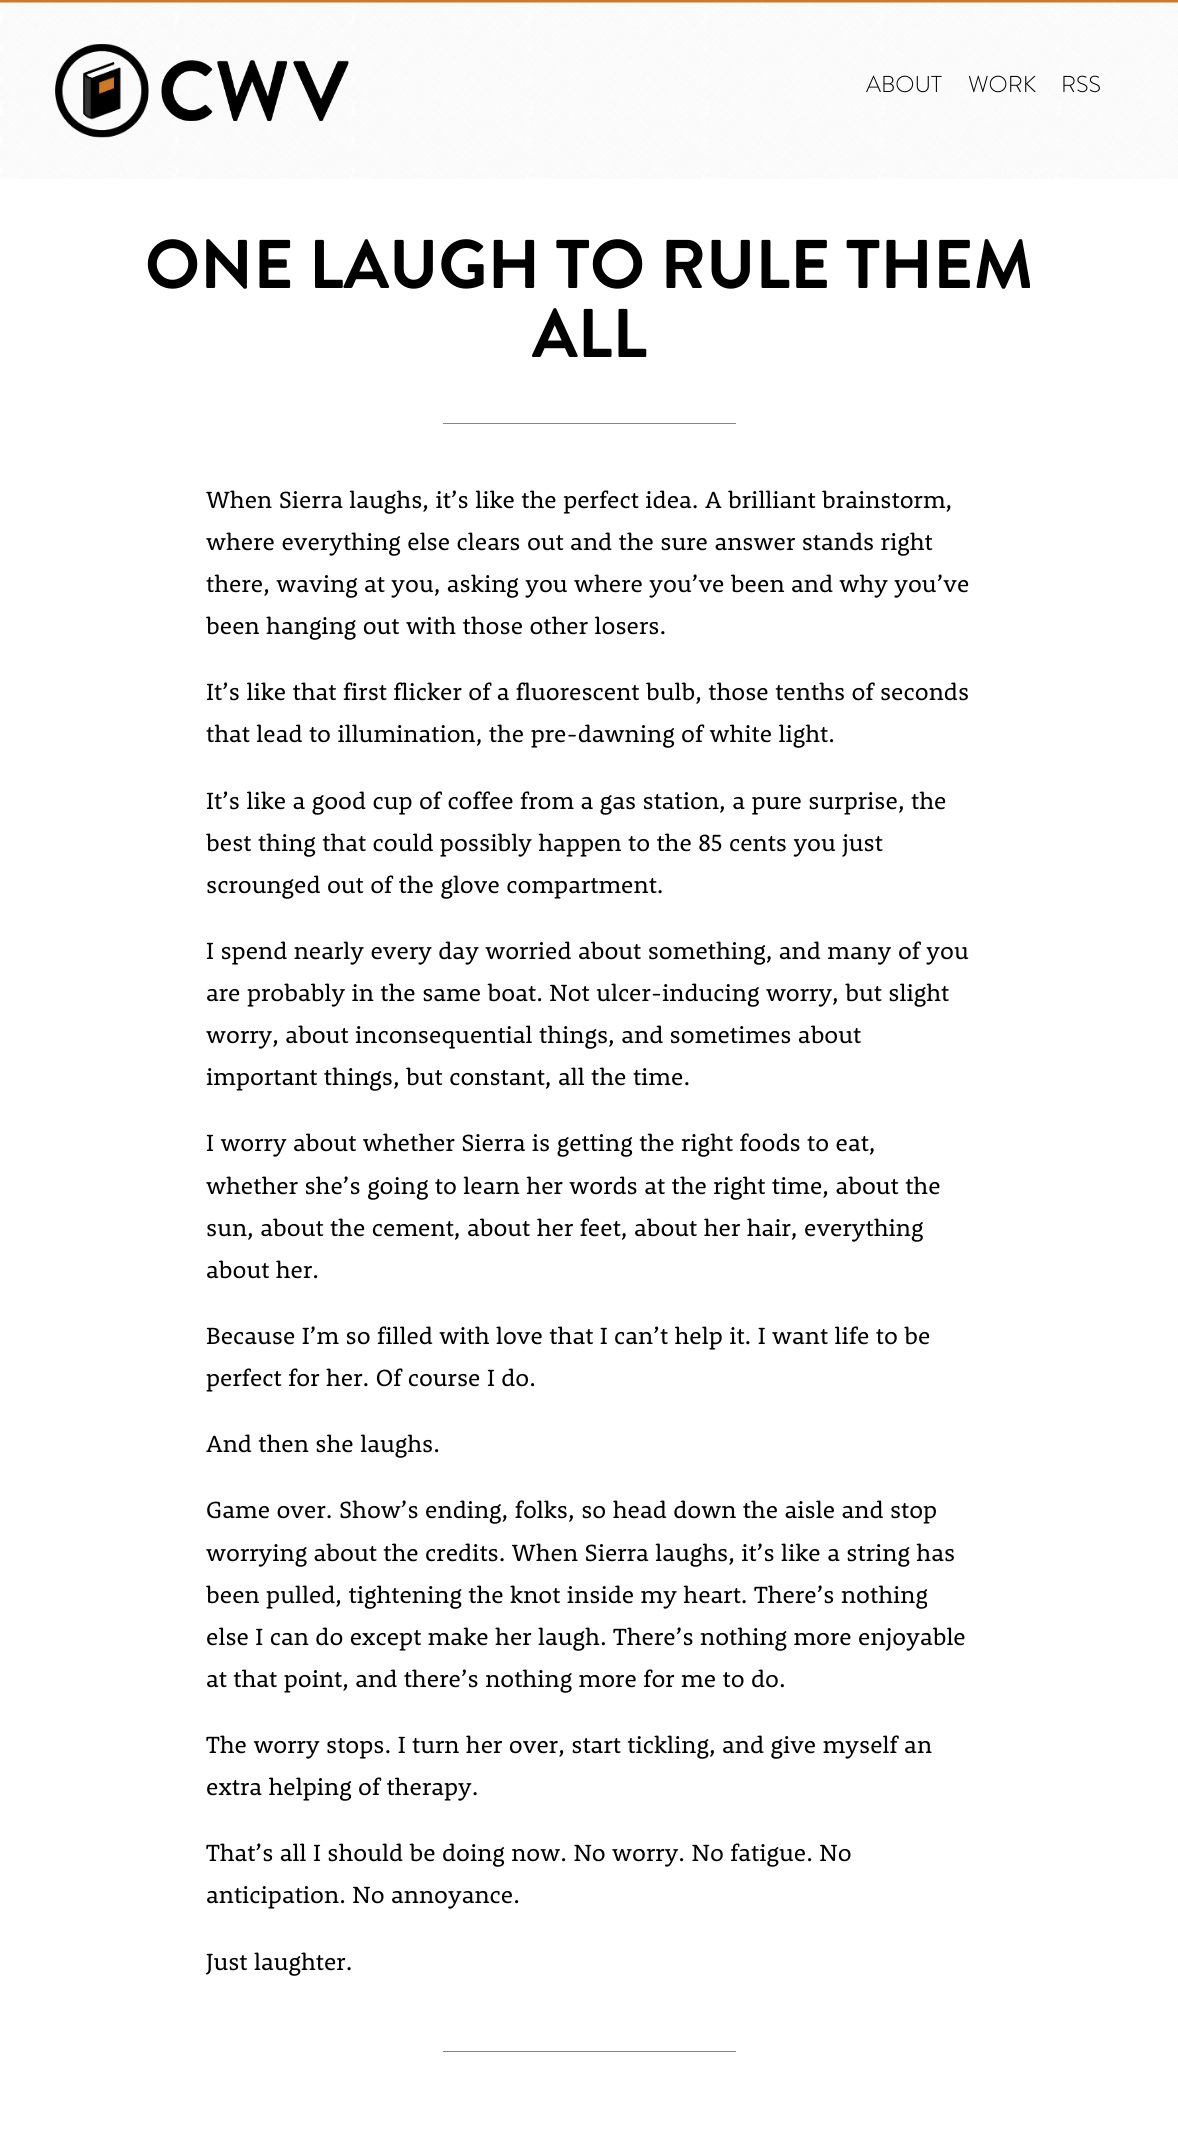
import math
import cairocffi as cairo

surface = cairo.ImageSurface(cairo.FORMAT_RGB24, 1178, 2132)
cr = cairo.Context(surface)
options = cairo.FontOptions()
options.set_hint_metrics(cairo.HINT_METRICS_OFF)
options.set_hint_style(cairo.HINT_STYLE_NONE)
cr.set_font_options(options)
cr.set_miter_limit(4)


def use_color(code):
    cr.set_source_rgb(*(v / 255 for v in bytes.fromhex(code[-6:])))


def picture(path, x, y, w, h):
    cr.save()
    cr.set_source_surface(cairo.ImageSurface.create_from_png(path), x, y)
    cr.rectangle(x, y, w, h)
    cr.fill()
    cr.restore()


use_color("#ffffff")
cr.paint()
use_color("#ce7926")
cr.rectangle(0, 0, 1178, 3)
cr.fill()
picture("img1.png", 0, 2, 1178, 177)
picture("img2.png", 55, 44, 94, 94)
picture("img3.png", 161, 60, 188, 61)
cr.select_font_face("Brandon Grotesque Light")
cr.set_font_size(23)
use_color("#000000")
cr.move_to(866, 92)
cr.show_text("ABOUT")
cr.move_to(968, 92)
cr.show_text("WORK")
cr.move_to(1061, 92)
cr.show_text("RSS")
cr.select_font_face("Brandon Grotesque", cairo.FONT_SLANT_NORMAL, cairo.FONT_WEIGHT_BOLD)
cr.set_font_size(68.75)
cr.move_to(145, 288)
cr.show_text("ONE LAUGH TO RULE THEM")
cr.move_to(532, 357)
cr.show_text("ALL")
use_color("#29a5ce")
cr.rectangle(443, 423, 293, 1)
cr.fill()
cr.select_font_face("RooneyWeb")
cr.set_font_size(24.05)
use_color("#000000")
cr.move_to(206, 508)
cr.show_text("When Sierra laughs, it’s like the perfect idea. A brilliant brainstorm,")
cr.move_to(206, 550)
cr.show_text("where everything else clears out and the sure answer stands right")
cr.move_to(206, 592)
cr.show_text("there, waving at you, asking you where you’ve been and why you’ve")
cr.move_to(206, 634)
cr.show_text("been hanging out with those other losers.")
cr.move_to(206, 700)
cr.show_text("It’s like that first flicker of a fluorescent bulb, those tenths of seconds")
cr.move_to(206, 742)
cr.show_text("that lead to illumination, the pre-dawning of white light.")
cr.move_to(206, 809)
cr.show_text("It’s like a good cup of coffee from a gas station, a pure surprise, the")
cr.move_to(206, 851)
cr.show_text("best thing that could possibly happen to the 85 cents you just")
cr.move_to(206, 893)
cr.show_text("scrounged out of the glove compartment.")
cr.move_to(206, 959)
cr.show_text("I spend nearly every day worried about something, and many of you")
cr.move_to(206, 1001)
cr.show_text("are probably in the same boat. Not ulcer-inducing worry, but slight")
cr.move_to(206, 1043)
cr.show_text("worry, about inconsequential things, and sometimes about")
cr.move_to(206, 1085)
cr.show_text("important things, but constant, all the time.")
cr.move_to(206, 1151)
cr.show_text("I worry about whether Sierra is getting the right foods to eat,")
cr.move_to(206, 1194)
cr.show_text("whether she’s going to learn her words at the right time, about the")
cr.move_to(206, 1236)
cr.show_text("sun, about the cement, about her feet, about her hair, everything")
cr.move_to(206, 1278)
cr.show_text("about her.")
cr.move_to(206, 1344)
cr.show_text("Because I’m so filled with love that I can’t help it. I want life to be")
cr.move_to(206, 1386)
cr.show_text("perfect for her. Of course I do.")
cr.move_to(206, 1452)
cr.show_text("And then she laughs.")
cr.move_to(206, 1518)
cr.show_text("Game over. Show’s ending, folks, so head down the aisle and stop")
cr.move_to(206, 1561)
cr.show_text("worrying about the credits. When Sierra laughs, it’s like a string has")
cr.move_to(206, 1603)
cr.show_text("been pulled, tightening the knot inside my heart. There’s nothing")
cr.move_to(206, 1645)
cr.show_text("else I can do except make her laugh. There’s nothing more enjoyable")
cr.move_to(206, 1687)
cr.show_text("at that point, and there’s nothing more for me to do.")
cr.move_to(206, 1753)
cr.show_text("The worry stops. I turn her over, start tickling, and give myself an")
cr.move_to(206, 1795)
cr.show_text("extra helping of therapy.")
cr.move_to(206, 1861)
cr.show_text("That’s all I should be doing now. No worry. No fatigue. No")
cr.move_to(206, 1903)
cr.show_text("anticipation. No annoyance.")
cr.move_to(206, 1970)
cr.show_text("Just laughter.")
use_color("#29a5ce")
cr.rectangle(443, 2051, 293, 1)
cr.fill()
surface.write_to_png("result.png")
